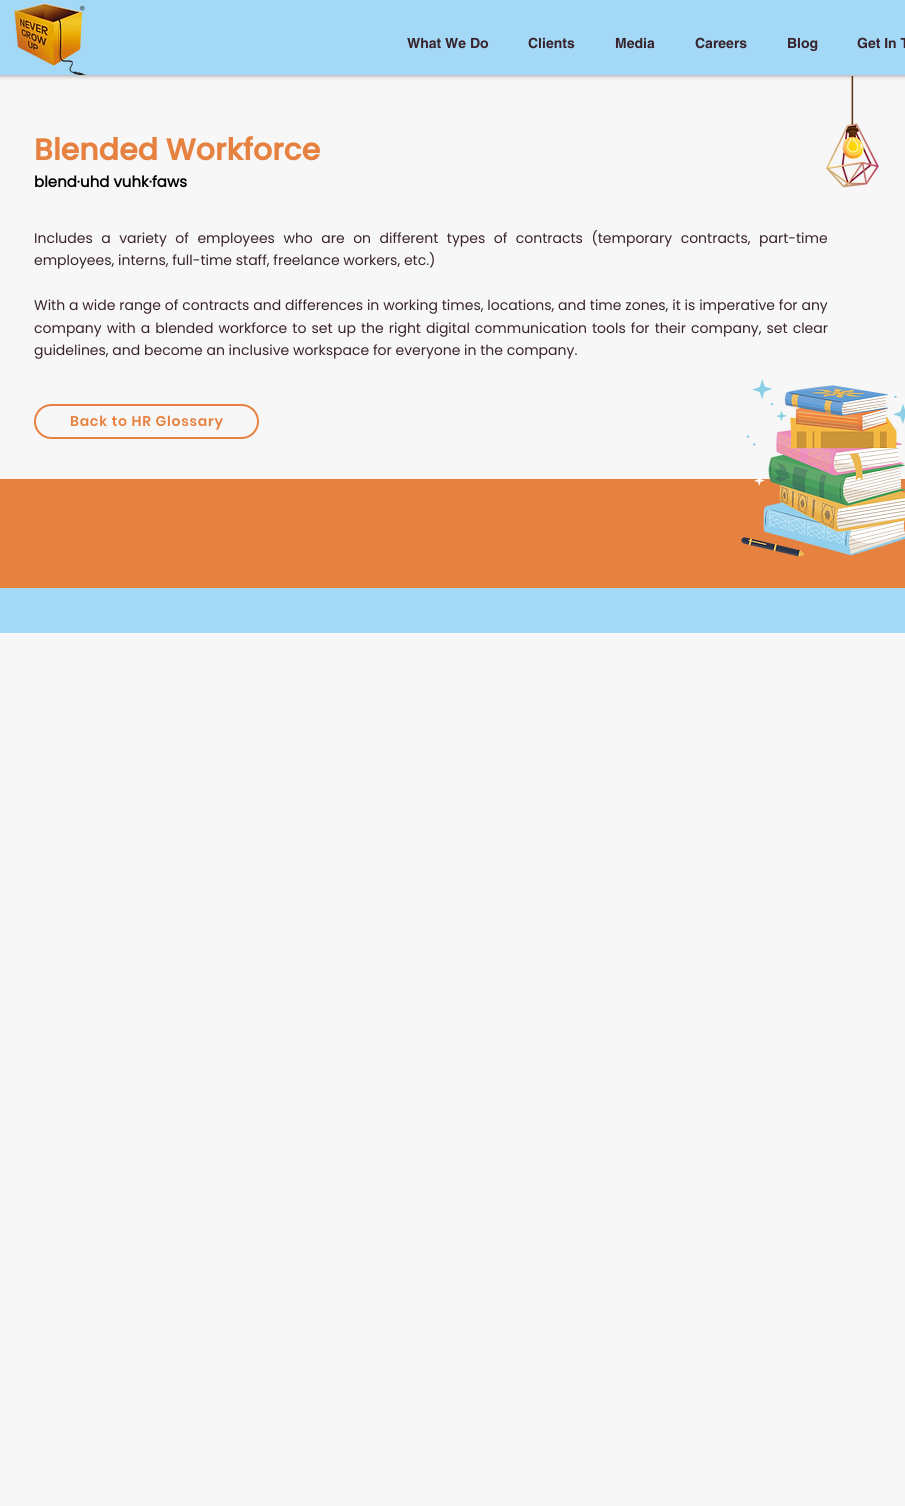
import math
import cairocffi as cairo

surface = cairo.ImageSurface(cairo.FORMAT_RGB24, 905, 1506)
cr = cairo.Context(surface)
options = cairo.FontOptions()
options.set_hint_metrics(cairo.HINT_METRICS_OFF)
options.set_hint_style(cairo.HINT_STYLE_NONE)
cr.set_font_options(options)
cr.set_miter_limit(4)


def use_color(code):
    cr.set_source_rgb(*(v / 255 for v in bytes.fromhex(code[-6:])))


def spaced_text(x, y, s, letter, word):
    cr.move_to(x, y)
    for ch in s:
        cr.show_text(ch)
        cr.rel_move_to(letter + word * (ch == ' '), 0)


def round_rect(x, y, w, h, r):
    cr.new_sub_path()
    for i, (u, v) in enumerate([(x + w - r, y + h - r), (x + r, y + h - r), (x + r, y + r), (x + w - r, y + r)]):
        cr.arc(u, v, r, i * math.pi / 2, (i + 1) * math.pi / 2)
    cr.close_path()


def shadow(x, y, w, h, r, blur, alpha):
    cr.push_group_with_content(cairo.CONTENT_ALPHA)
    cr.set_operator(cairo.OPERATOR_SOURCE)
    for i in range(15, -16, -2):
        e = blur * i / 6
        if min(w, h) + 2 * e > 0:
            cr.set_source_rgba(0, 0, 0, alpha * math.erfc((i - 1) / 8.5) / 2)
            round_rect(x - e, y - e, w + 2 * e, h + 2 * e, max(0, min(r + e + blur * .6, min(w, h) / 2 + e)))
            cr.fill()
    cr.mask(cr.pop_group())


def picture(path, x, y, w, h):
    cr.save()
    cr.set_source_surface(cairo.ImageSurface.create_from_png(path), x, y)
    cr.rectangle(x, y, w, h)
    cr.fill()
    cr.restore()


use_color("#f7f7f7")
cr.paint()
picture("img2.png", 826, 76, 53, 112)
use_color("#000000")
shadow(0, 0, 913, 75, 0, 2.5, 0.5)
use_color("#a3d9f6")
cr.rectangle(0, 0, 905, 75)
cr.fill()
picture("img1.png", 14, 3, 73, 72)
cr.select_font_face("helvetica", cairo.FONT_SLANT_NORMAL, cairo.FONT_WEIGHT_BOLD)
cr.set_font_size(14)
use_color("#38232d")
cr.move_to(407, 48)
cr.show_text("What We Do")
cr.move_to(528, 48)
cr.show_text("Clients")
cr.move_to(615, 48)
cr.show_text("Media")
cr.move_to(695, 48)
cr.show_text("Careers")
cr.move_to(787, 48)
cr.show_text("Blog")
cr.move_to(857, 48)
cr.show_text("Get In T")
cr.select_font_face("Poppins", cairo.FONT_SLANT_NORMAL, cairo.FONT_WEIGHT_BOLD)
cr.set_font_size(30)
use_color("#e6813f")
cr.move_to(34, 160)
cr.show_text("Blended Workforce")
cr.select_font_face("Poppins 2", cairo.FONT_SLANT_NORMAL, cairo.FONT_WEIGHT_BOLD)
cr.set_font_size(15)
use_color("#000000")
cr.move_to(34, 187)
cr.show_text("blend·uhd vuhk·faws")
cr.select_font_face("Poppins")
cr.set_font_size(14)
use_color("#38232d")
spaced_text(34, 243, "Includes a variety of employees who are on different types of contracts (temporary contracts, part-time", 0, 4.75)
cr.move_to(34, 265)
cr.show_text("employees, interns, full-time staff, freelance workers, etc.)")
spaced_text(34, 310, "With a wide range of contracts and differences in working times, locations, and time zones, it is imperative for any", 0, 0.1)
spaced_text(34, 333, "company with a blended workforce to set up the right digital communication tools for their company, set clear", 0, 1.3)
cr.move_to(34, 355)
cr.show_text("guidelines, and become an inclusive workspace for everyone in the company.")
round_rect(35, 405, 223, 33, 16.5)
use_color("#e6813f")
cr.stroke()
cr.select_font_face("Poppins SemiBold")
spaced_text(70, 426, "Back to HR Glossary", 0.75, 0)
cr.rectangle(0, 479, 905, 109)
cr.fill()
picture("img3.png", 741, 379, 164, 178)
use_color("#a3d9f6")
cr.rectangle(0, 588, 905, 45)
cr.fill()
surface.write_to_png("result.png")
